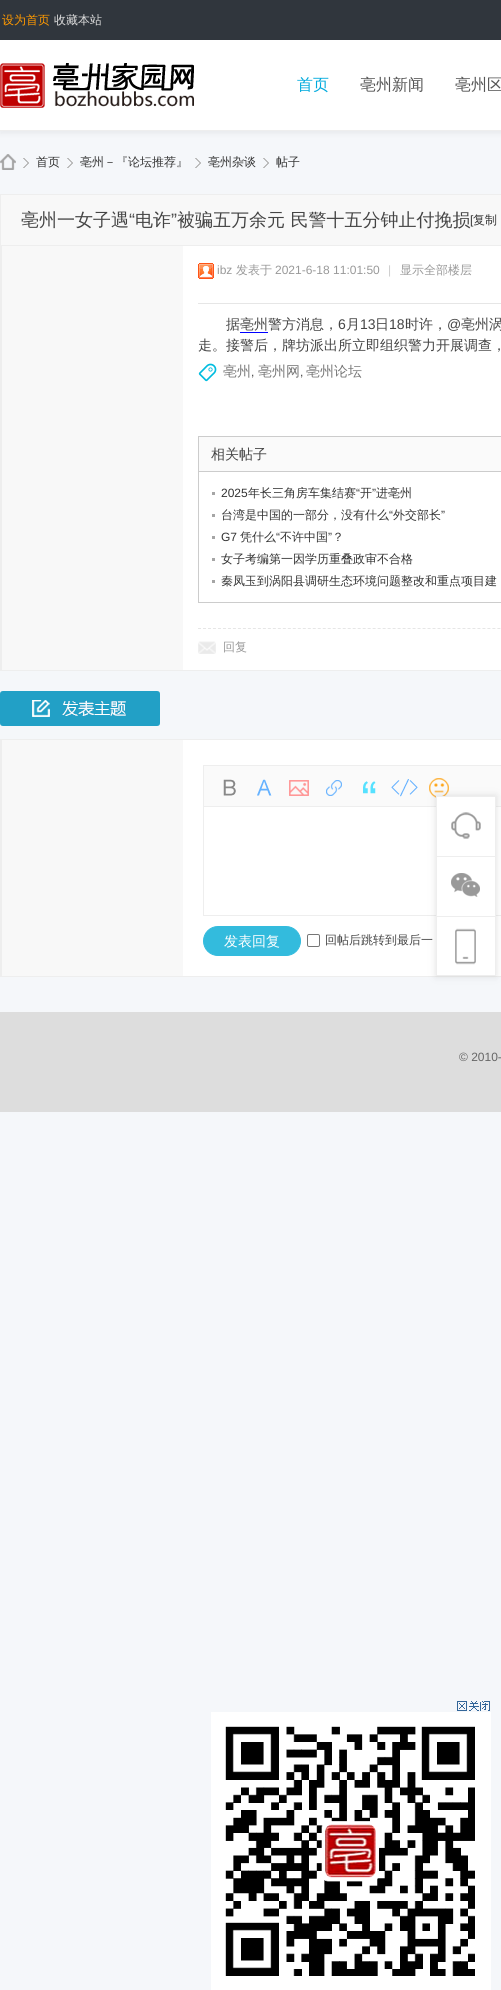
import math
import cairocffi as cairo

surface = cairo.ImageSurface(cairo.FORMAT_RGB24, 501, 1990)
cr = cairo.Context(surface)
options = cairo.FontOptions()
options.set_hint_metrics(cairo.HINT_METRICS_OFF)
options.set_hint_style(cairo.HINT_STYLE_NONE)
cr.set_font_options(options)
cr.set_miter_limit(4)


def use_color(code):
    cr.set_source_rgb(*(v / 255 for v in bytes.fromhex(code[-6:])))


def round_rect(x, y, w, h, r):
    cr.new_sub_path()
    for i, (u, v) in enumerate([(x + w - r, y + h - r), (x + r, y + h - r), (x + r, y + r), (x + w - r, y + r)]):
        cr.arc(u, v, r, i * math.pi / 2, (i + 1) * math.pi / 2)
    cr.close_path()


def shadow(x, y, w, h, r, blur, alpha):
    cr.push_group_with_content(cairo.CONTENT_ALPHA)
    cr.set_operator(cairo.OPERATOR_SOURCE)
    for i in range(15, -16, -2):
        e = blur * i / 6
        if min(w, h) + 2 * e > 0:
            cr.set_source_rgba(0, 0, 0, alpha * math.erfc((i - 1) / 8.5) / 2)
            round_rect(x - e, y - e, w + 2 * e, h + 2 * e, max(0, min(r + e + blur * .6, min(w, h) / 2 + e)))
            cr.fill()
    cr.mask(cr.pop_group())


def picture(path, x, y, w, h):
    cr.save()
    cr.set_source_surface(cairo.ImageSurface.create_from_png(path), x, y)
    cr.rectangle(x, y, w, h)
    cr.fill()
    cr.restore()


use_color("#f5f7fa")
cr.paint()
use_color("#000000")
shadow(0, 3, 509, 131, 0, 2.5, 0.05)
use_color("#ffffff")
cr.rectangle(0, 40, 501, 90)
cr.fill()
use_color("#eeeeee")
cr.rectangle(0, 130, 501, 1)
cr.fill()
use_color("#30363d")
cr.rectangle(0, 0, 501, 40)
cr.fill()
cr.select_font_face("WenQuanYi Zen Hei Medium")
cr.set_font_size(12)
use_color("#ff9900")
cr.move_to(2, 24)
cr.show_text("设为首页")
use_color("#dddddd")
cr.move_to(54, 24)
cr.show_text("收藏本站")
picture("img1.png", 0, 63, 194, 45)
cr.set_font_size(16)
use_color("#00aadd")
cr.move_to(297, 90)
cr.show_text("首页")
use_color("#555555")
cr.move_to(360, 90)
cr.show_text("亳州新闻")
cr.move_to(455, 90)
cr.show_text("亳州区")
picture("img2.png", 0, 154, 16, 16)
picture("img3.png", 23, 158, 6, 10)
cr.set_font_size(12)
use_color("#333333")
cr.move_to(36, 166)
cr.show_text("首页")
picture("img3.png", 67, 158, 6, 10)
cr.move_to(80, 166)
cr.show_text("亳州－『论坛推荐』")
picture("img3.png", 195, 158, 6, 10)
cr.move_to(208, 166)
cr.show_text("亳州杂谈")
picture("img3.png", 263, 158, 6, 10)
cr.move_to(276, 166)
cr.show_text("帖子")
use_color("#f8f8f8")
cr.rectangle(1, 195, 500, 50)
cr.fill()
use_color("#eeeeee")
cr.rectangle(0, 194, 501, 1)
cr.fill()
cr.rectangle(0, 194, 1, 51)
cr.fill()
cr.set_font_size(18)
use_color("#444444")
cr.move_to(21, 226)
cr.show_text("亳州一女子遇")
cr.select_font_face("Liberation Sans")
cr.move_to(129, 226)
cr.show_text("“")
cr.select_font_face("WenQuanYi Zen Hei Medium")
cr.move_to(135, 226)
cr.show_text("电诈")
cr.select_font_face("Liberation Sans")
cr.move_to(171, 226)
cr.show_text("”")
cr.select_font_face("WenQuanYi Zen Hei Medium")
cr.move_to(177, 226)
cr.show_text("被骗五万余元 民警十五分钟止付挽损")
cr.select_font_face("Liberation Sans")
cr.set_font_size(12)
use_color("#333333")
cr.move_to(470, 224)
cr.show_text("[")
cr.select_font_face("WenQuanYi Zen Hei Medium")
cr.move_to(473, 224)
cr.show_text("复制")
use_color("#ffffff")
cr.rectangle(183, 246, 318, 424)
cr.fill()
cr.rectangle(0.5, 245.5, 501, 425)
use_color("#eeeeee")
cr.set_line_width(1)
cr.stroke()
use_color("#f8f8f8")
cr.rectangle(2, 246, 181, 424)
cr.fill()
use_color("#e6e6e6")
cr.rectangle(198, 303, 303, 1)
cr.fill()
picture("img4.png", 198, 263, 16, 16)
cr.select_font_face("Liberation Sans")
use_color("#999999")
cr.move_to(217, 274)
cr.show_text("ibz")
cr.select_font_face("WenQuanYi Zen Hei Medium")
cr.move_to(236, 274)
cr.show_text("发表于")
cr.select_font_face("Liberation Sans")
cr.move_to(275, 274)
cr.show_text("2021-6-18 11:01:50")
use_color("#cccccc")
cr.move_to(388, 274)
cr.show_text("|")
cr.select_font_face("WenQuanYi Zen Hei Medium")
use_color("#999999")
cr.move_to(400, 274)
cr.show_text("显示全部楼层")
cr.set_font_size(14)
use_color("#444444")
cr.move_to(226, 329)
cr.show_text("据亳州警方消息，")
cr.select_font_face("Liberation Sans")
cr.move_to(338, 329)
cr.show_text("6")
cr.select_font_face("WenQuanYi Zen Hei Medium")
cr.move_to(346, 329)
cr.show_text("月")
cr.select_font_face("Liberation Sans")
cr.move_to(360, 329)
cr.show_text("13")
cr.select_font_face("WenQuanYi Zen Hei Medium")
cr.move_to(375, 329)
cr.show_text("日")
cr.select_font_face("Liberation Sans")
cr.move_to(389, 329)
cr.show_text("18")
cr.select_font_face("WenQuanYi Zen Hei Medium")
cr.move_to(405, 329)
cr.show_text("时许，")
cr.select_font_face("Liberation Sans")
cr.move_to(447, 329)
cr.show_text("@")
cr.select_font_face("WenQuanYi Zen Hei Medium")
cr.move_to(461, 329)
cr.show_text("亳州涡")
use_color("#0000ff")
cr.rectangle(240, 332, 28, 1)
cr.fill()
use_color("#444444")
cr.move_to(198, 350)
cr.show_text("走。接警后，牌坊派出所立即组织警力开展调查，")
picture("img5.png", 198, 363, 19, 19)
use_color("#777777")
cr.move_to(223, 376)
cr.show_text("亳州")
cr.select_font_face("Liberation Sans")
cr.set_font_size(12)
use_color("#444444")
cr.move_to(251, 376)
cr.show_text(",")
cr.select_font_face("WenQuanYi Zen Hei Medium")
cr.set_font_size(14)
use_color("#777777")
cr.move_to(258, 376)
cr.show_text("亳州网")
cr.select_font_face("Liberation Sans")
cr.set_font_size(12)
use_color("#444444")
cr.move_to(300, 376)
cr.show_text(",")
cr.select_font_face("WenQuanYi Zen Hei Medium")
cr.set_font_size(14)
use_color("#777777")
cr.move_to(306, 376)
cr.show_text("亳州论坛")
cr.rectangle(198.5, 436.5, 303, 166)
use_color("#cccccc")
cr.stroke()
use_color("#fafafa")
cr.rectangle(199, 437, 302, 34)
cr.fill()
use_color("#cccccc")
cr.rectangle(199, 471, 302, 1)
cr.fill()
use_color("#444444")
cr.move_to(211, 459)
cr.show_text("相关帖子")
use_color("#a5a5a5")
cr.rectangle(212, 492, 3, 3)
cr.fill()
cr.select_font_face("Liberation Sans")
cr.set_font_size(12)
use_color("#333333")
cr.move_to(221, 497)
cr.show_text("2025")
cr.select_font_face("WenQuanYi Zen Hei Medium")
cr.move_to(248, 497)
cr.show_text("年长三角房车集结赛")
cr.select_font_face("Liberation Sans")
cr.move_to(356, 497)
cr.show_text("“")
cr.select_font_face("WenQuanYi Zen Hei Medium")
cr.move_to(360, 497)
cr.show_text("开")
cr.select_font_face("Liberation Sans")
cr.move_to(372, 497)
cr.show_text("”")
cr.select_font_face("WenQuanYi Zen Hei Medium")
cr.move_to(376, 497)
cr.show_text("进亳州")
use_color("#a5a5a5")
cr.rectangle(212, 514, 3, 3)
cr.fill()
use_color("#333333")
cr.move_to(221, 519)
cr.show_text("台湾是中国的一部分，没有什么")
cr.select_font_face("Liberation Sans")
cr.move_to(389, 519)
cr.show_text("“")
cr.select_font_face("WenQuanYi Zen Hei Medium")
cr.move_to(393, 519)
cr.show_text("外交部长")
cr.select_font_face("Liberation Sans")
cr.move_to(441, 519)
cr.show_text("”")
use_color("#a5a5a5")
cr.rectangle(212, 536, 3, 3)
cr.fill()
use_color("#333333")
cr.move_to(221, 541)
cr.show_text("G7")
cr.select_font_face("WenQuanYi Zen Hei Medium")
cr.move_to(240, 541)
cr.show_text("凭什么")
cr.select_font_face("Liberation Sans")
cr.move_to(276, 541)
cr.show_text("“")
cr.select_font_face("WenQuanYi Zen Hei Medium")
cr.move_to(280, 541)
cr.show_text("不许中国")
cr.select_font_face("Liberation Sans")
cr.move_to(328, 541)
cr.show_text("”")
cr.select_font_face("WenQuanYi Zen Hei Medium")
cr.move_to(332, 541)
cr.show_text("？")
use_color("#a5a5a5")
cr.rectangle(212, 558, 3, 3)
cr.fill()
use_color("#333333")
cr.move_to(221, 563)
cr.show_text("女子考编第一因学历重叠政审不合格")
use_color("#a5a5a5")
cr.rectangle(212, 580, 3, 3)
cr.fill()
use_color("#333333")
cr.move_to(221, 585)
cr.show_text("秦凤玉到涡阳县调研生态环境问题整改和重点项目建")
use_color("#eeeeee")
cr.rectangle(1, 246, 1, 425)
cr.fill()
cr.new_path()
cr.move_to(198, 628.5)
cr.line_to(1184, 628.5)
use_color("#e6e6e6")
cr.set_dash([3, 1.99])
cr.stroke()
picture("img6.png", 198, 641, 18, 13)
use_color("#999999")
cr.move_to(223, 651)
cr.show_text("回复")
picture("img7.png", 0, 691, 160, 35)
use_color("#ffffff")
cr.rectangle(183, 740, 318, 236)
cr.fill()
cr.rectangle(0.5, 739.5, 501, 237)
use_color("#eeeeee")
cr.set_dash([])
cr.stroke()
cr.rectangle(1, 740, 1, 237)
cr.fill()
use_color("#f8f8f8")
cr.rectangle(2, 740, 181, 236)
cr.fill()
cr.rectangle(203.5, 765.5, 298, 150)
use_color("#eeeeee")
cr.stroke()
use_color("#fafafa")
cr.rectangle(204, 766, 297, 40)
cr.fill()
use_color("#eeeeee")
cr.rectangle(204, 806, 297, 1)
cr.fill()
picture("img8.png", 223, 779, 13, 17)
picture("img9.png", 257, 779, 15, 17)
picture("img10.png", 289, 780, 20, 16)
picture("img11.png", 326, 780, 16, 16)
picture("img12.png", 363, 781, 13, 13)
picture("img13.png", 391, 779, 27, 18)
picture("img14.png", 429, 778, 20, 20)
use_color("#33bbdd")
round_rect(203.5, 926.5, 97, 29, 14.5)
cr.fill_preserve()
cr.stroke()
cr.set_font_size(14)
use_color("#ffffff")
cr.move_to(224, 946)
cr.show_text("发表回复")
round_rect(307.5, 934.5, 12, 12, 1.5)
use_color("#767676")
cr.stroke()
cr.set_font_size(12)
use_color("#444444")
cr.move_to(325, 944)
cr.show_text("回帖后跳转到最后一")
use_color("#dddddd")
cr.rectangle(0, 1012, 501, 100)
cr.fill()
use_color("#646464")
shadow(436, 796, 60, 180, 0, 4, 0.2)
picture("img15.png", 436, 796, 60, 60)
picture("img16.png", 436, 856, 60, 60)
picture("img17.png", 436, 916, 60, 60)
cr.select_font_face("Liberation Sans")
use_color("#666666")
cr.move_to(459, 1061)
cr.show_text("© 2010-")
picture("img18.png", 457, 1701, 33, 10)
picture("img19.png", 211, 1712, 280, 278)
surface.write_to_png("result.png")
